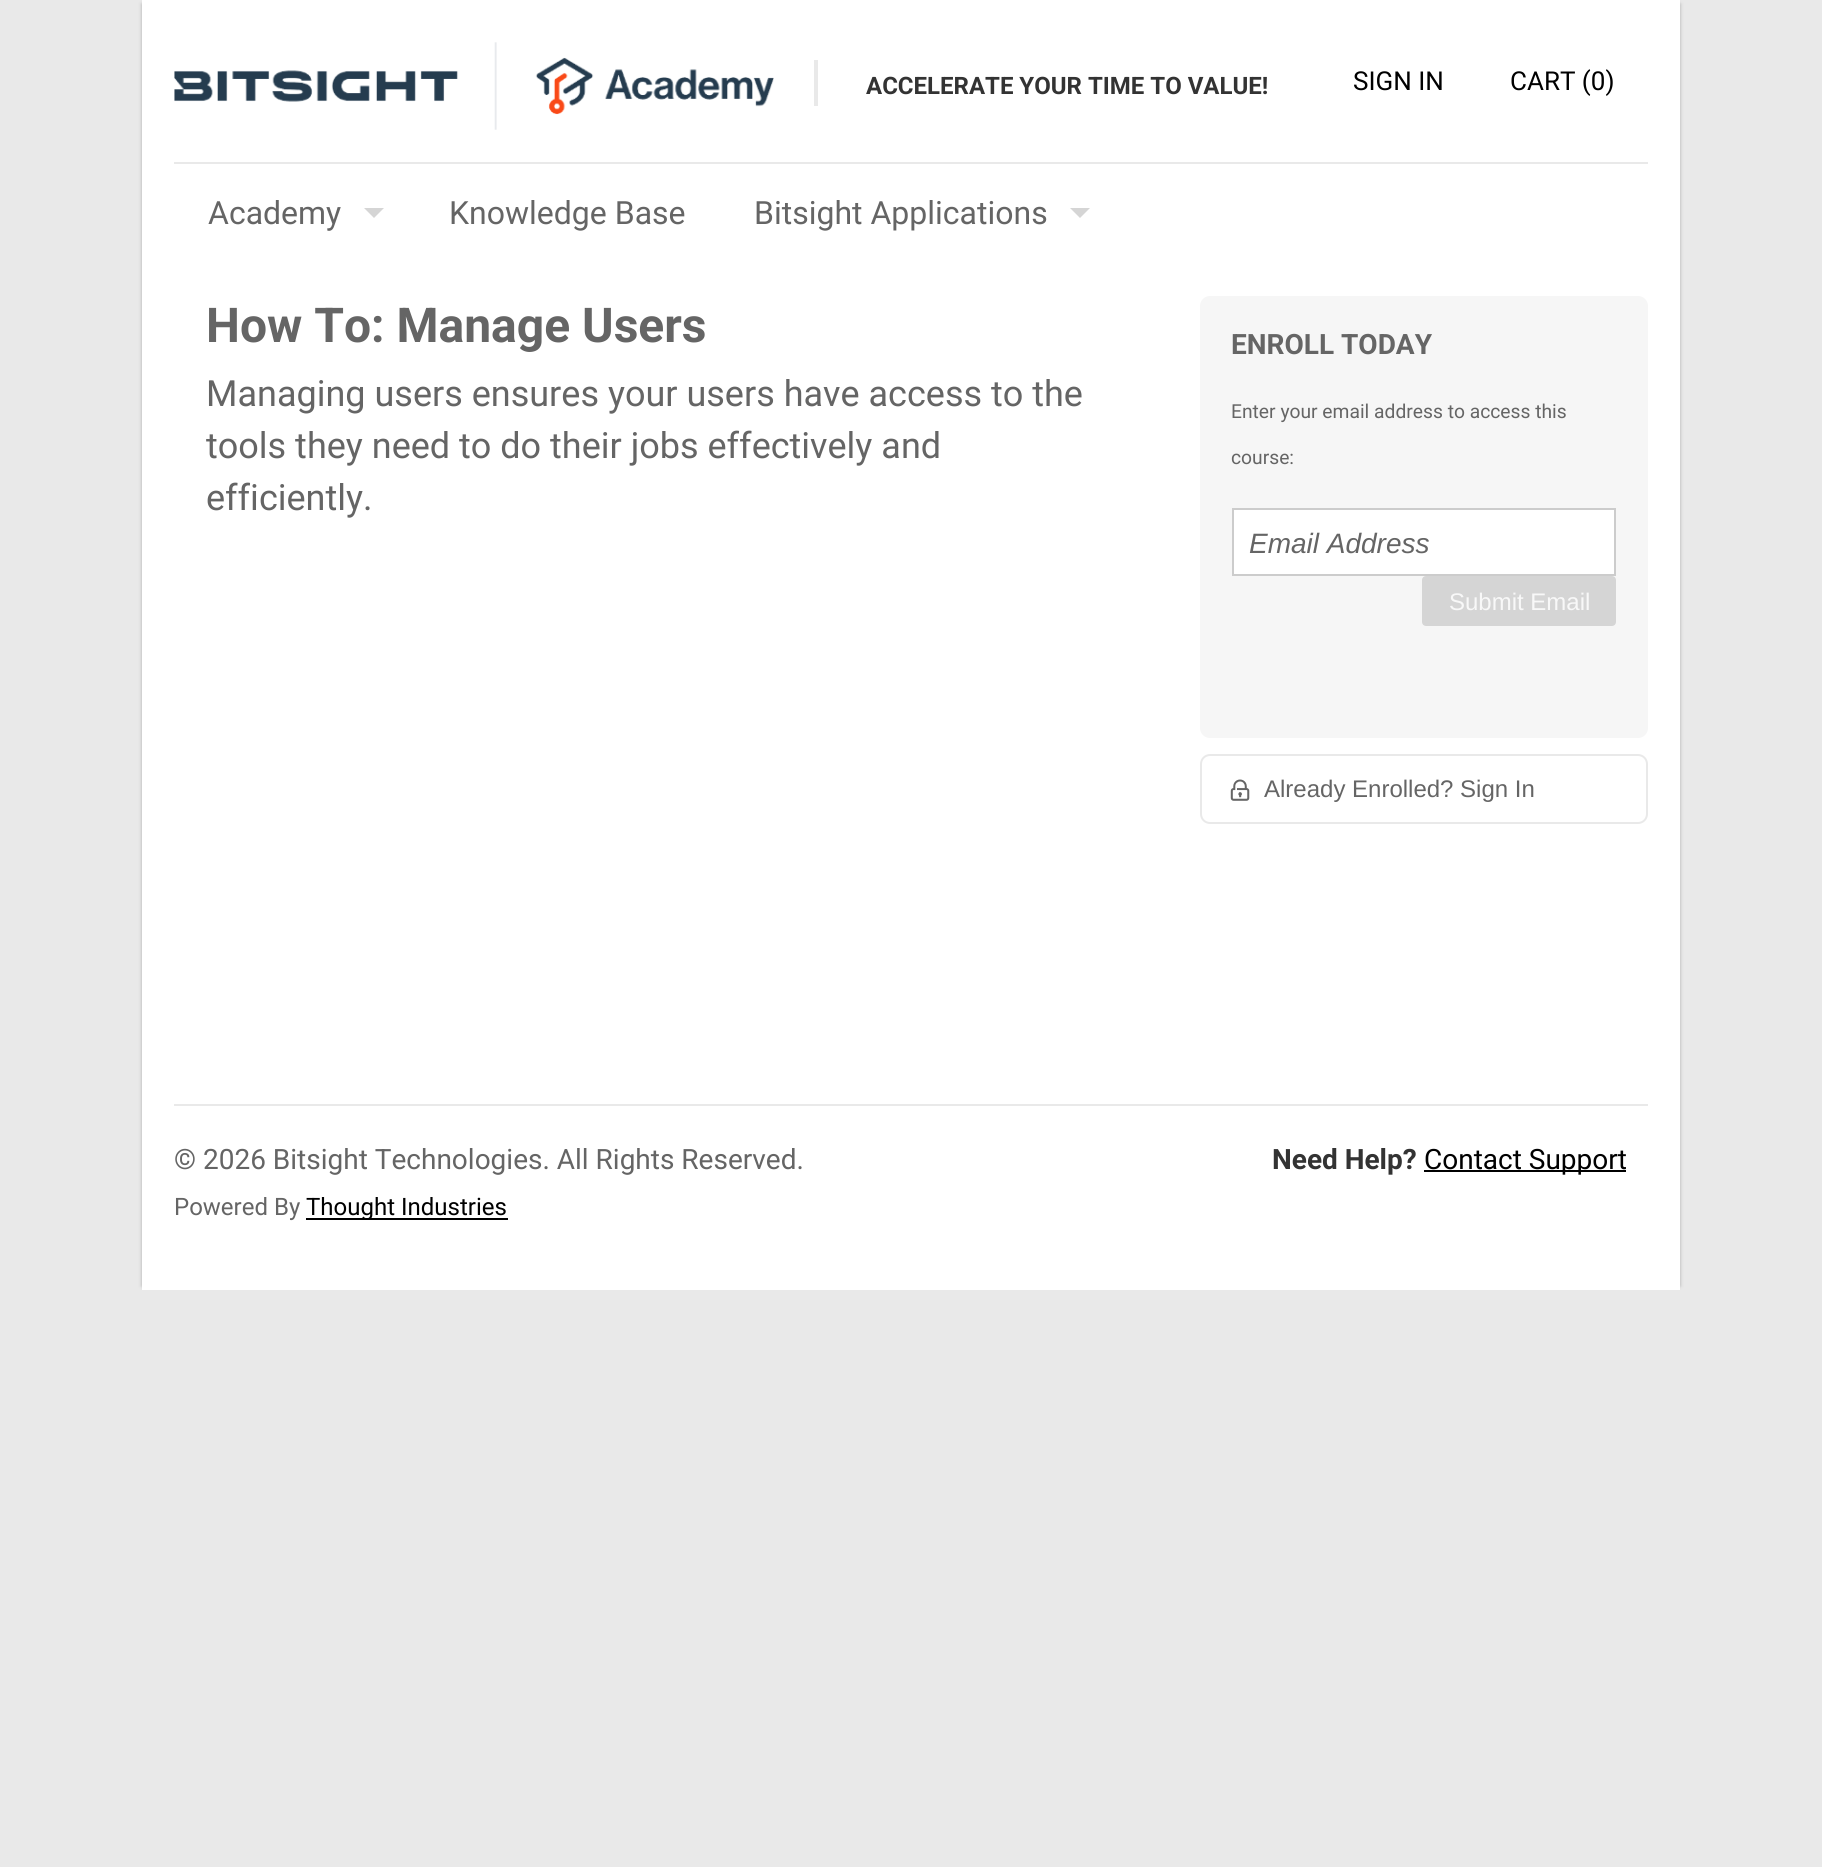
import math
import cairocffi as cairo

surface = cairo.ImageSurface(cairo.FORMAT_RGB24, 1822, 1867)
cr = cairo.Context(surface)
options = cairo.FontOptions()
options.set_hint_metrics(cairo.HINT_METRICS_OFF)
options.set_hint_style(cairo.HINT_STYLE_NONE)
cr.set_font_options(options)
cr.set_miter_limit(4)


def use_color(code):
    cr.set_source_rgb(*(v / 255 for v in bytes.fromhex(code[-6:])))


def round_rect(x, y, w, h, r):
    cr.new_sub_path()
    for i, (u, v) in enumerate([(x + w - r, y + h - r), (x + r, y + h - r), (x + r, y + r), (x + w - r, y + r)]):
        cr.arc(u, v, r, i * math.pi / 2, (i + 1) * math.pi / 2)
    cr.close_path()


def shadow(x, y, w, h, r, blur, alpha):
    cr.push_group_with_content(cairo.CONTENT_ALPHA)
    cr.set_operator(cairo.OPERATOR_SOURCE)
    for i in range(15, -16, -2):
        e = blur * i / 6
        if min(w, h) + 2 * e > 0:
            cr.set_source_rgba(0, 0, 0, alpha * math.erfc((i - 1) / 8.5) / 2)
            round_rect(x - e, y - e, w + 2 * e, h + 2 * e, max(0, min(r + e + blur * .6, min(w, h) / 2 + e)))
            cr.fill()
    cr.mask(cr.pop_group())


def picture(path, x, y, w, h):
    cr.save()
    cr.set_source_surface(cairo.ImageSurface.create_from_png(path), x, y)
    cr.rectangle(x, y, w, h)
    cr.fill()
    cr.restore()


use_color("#e9e9e9")
cr.paint()
use_color("#000000")
shadow(150, 4, 1530, 1282, 0, 2, 0.25)
shadow(142, 4, 1530, 1282, 0, 2, 0.25)
use_color("#ffffff")
cr.rectangle(142, 0, 1538, 1290)
cr.fill()
picture("img1.png", 174, 42, 600, 88)
use_color("#e9e9e9")
cr.rectangle(814, 60, 4, 46)
cr.fill()
cr.select_font_face("Roboto", cairo.FONT_SLANT_NORMAL, cairo.FONT_WEIGHT_BOLD)
cr.set_font_size(24)
use_color("#333333")
cr.move_to(866, 94)
cr.show_text("ACCELERATE YOUR TIME TO VALUE!")
cr.select_font_face("Roboto")
cr.set_font_size(26)
use_color("#000000")
cr.move_to(1353, 90)
cr.show_text("SIGN IN")
cr.move_to(1510, 90)
cr.show_text("CART (0)")
use_color("#e9e9e9")
cr.rectangle(174, 162, 1474, 2)
cr.fill()
cr.set_font_size(32)
use_color("#656565")
cr.move_to(208, 224)
cr.show_text("Academy")
use_color("#d5d5d5")
cr.new_path()
cr.move_to(364, 208)
cr.line_to(384, 208)
cr.line_to(374, 218)
cr.close_path()
cr.fill()
use_color("#656565")
cr.move_to(449, 224)
cr.show_text("Knowledge Base")
cr.move_to(754, 224)
cr.show_text("Bitsight Applications")
use_color("#d5d5d5")
cr.new_path()
cr.move_to(1070, 208)
cr.line_to(1090, 208)
cr.line_to(1080, 218)
cr.close_path()
cr.fill()
cr.select_font_face("Roboto", cairo.FONT_SLANT_NORMAL, cairo.FONT_WEIGHT_BOLD)
cr.set_font_size(48)
use_color("#656565")
cr.move_to(206, 342)
cr.show_text("How To: Manage Users")
cr.select_font_face("Roboto")
cr.set_font_size(36)
cr.move_to(206, 406)
cr.show_text("Managing users ensures your users have access to the")
cr.move_to(206, 458)
cr.show_text("tools they need to do their jobs effectively and")
cr.move_to(206, 510)
cr.show_text("efficiently.")
use_color("#f6f6f6")
round_rect(1200, 296, 448, 442, 10)
cr.fill()
cr.select_font_face("Roboto", cairo.FONT_SLANT_NORMAL, cairo.FONT_WEIGHT_BOLD)
cr.set_font_size(28)
use_color("#656565")
cr.move_to(1231, 354)
cr.show_text("ENROLL TODAY")
cr.select_font_face("Roboto")
cr.set_font_size(19.25)
cr.move_to(1231, 418)
cr.show_text("Enter your email address to access this")
cr.move_to(1231, 464)
cr.show_text("course:")
use_color("#ffffff")
cr.rectangle(1233, 509, 382, 66)
cr.fill_preserve()
use_color("#cccccc")
cr.stroke()
cr.select_font_face("Liberation Sans", cairo.FONT_SLANT_ITALIC)
cr.set_font_size(28)
use_color("#656565")
cr.move_to(1249, 553)
cr.show_text("Email Address")
use_color("#d5d5d5")
round_rect(1423, 577, 192, 48, 3)
cr.fill_preserve()
cr.stroke()
cr.select_font_face("Liberation Sans")
cr.set_font_size(24)
use_color("#f8f8f8")
cr.move_to(1449, 610)
cr.show_text("Submit Email")
round_rect(1201, 755, 446, 68, 9)
use_color("#e9e9e9")
cr.stroke()
picture("img2.png", 1230, 779, 20, 22)
use_color("#656565")
cr.move_to(1264, 797)
cr.show_text("Already Enrolled? Sign In")
use_color("#e9e9e9")
cr.rectangle(174, 1104, 1474, 2)
cr.fill()
cr.select_font_face("Roboto")
cr.set_font_size(28)
use_color("#656565")
cr.move_to(174, 1169)
cr.show_text("© 2026 Bitsight Technologies. All Rights Reserved.")
cr.set_font_size(24)
cr.move_to(174, 1215)
cr.show_text("Powered By")
use_color("#000000")
cr.rectangle(306, 1218, 202, 2)
cr.fill()
cr.move_to(306, 1215)
cr.show_text("Thought Industries")
cr.select_font_face("Roboto", cairo.FONT_SLANT_NORMAL, cairo.FONT_WEIGHT_BOLD)
cr.set_font_size(28)
use_color("#333333")
cr.move_to(1272, 1169)
cr.show_text("Need Help?")
use_color("#000000")
cr.rectangle(1424, 1170, 202, 2)
cr.fill()
cr.select_font_face("Roboto")
cr.move_to(1424, 1169)
cr.show_text("Contact Support")
surface.write_to_png("result.png")
